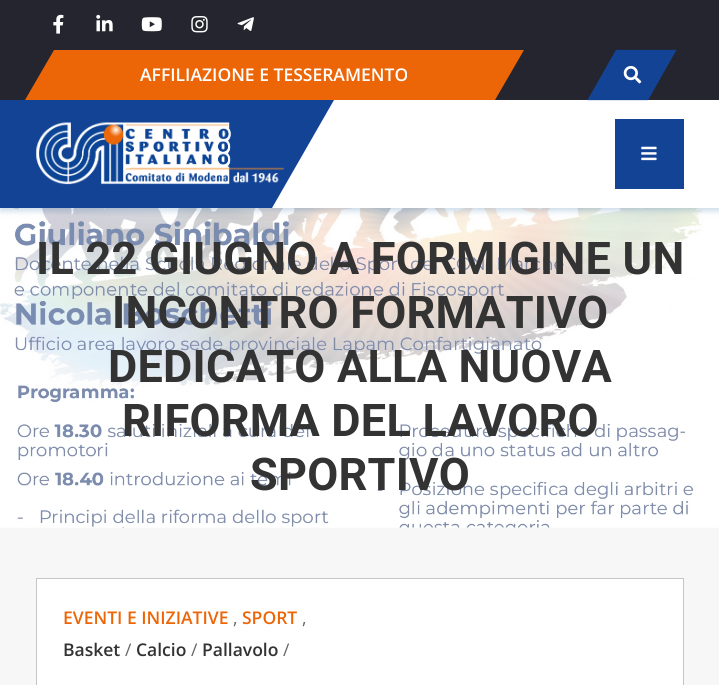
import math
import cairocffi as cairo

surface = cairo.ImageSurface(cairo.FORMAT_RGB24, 719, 685)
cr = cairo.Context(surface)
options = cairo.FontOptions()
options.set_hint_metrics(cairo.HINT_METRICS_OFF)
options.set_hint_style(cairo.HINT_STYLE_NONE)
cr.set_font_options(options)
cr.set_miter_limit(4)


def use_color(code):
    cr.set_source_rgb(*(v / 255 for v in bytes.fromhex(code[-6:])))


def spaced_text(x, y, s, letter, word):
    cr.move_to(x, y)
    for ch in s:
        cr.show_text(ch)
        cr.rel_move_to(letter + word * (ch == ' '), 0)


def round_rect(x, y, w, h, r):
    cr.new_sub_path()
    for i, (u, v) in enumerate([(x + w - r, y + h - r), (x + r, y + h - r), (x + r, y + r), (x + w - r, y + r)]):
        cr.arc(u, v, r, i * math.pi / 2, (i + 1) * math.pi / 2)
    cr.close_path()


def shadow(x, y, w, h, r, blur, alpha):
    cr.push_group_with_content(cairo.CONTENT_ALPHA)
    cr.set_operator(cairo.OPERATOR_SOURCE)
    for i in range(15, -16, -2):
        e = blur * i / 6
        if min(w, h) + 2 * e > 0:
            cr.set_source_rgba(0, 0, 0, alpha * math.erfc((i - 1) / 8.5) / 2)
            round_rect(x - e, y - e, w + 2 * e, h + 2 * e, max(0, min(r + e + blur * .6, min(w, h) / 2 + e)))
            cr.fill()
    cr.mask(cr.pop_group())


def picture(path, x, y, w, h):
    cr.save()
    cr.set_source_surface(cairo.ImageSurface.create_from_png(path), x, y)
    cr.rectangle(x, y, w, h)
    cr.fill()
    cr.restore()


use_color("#f7f7f7")
cr.paint()
use_color("#fafafa")
cr.rectangle(0, 527, 719, 1)
cr.fill()
use_color("#25252f")
cr.rectangle(0, 0, 719, 100)
cr.fill()
picture("img1.png", 53, 14, 11, 20)
picture("img2.png", 96, 14, 17, 18)
picture("img3.png", 141, 17, 21, 15)
picture("img4.png", 191, 16, 17, 17)
picture("img5.png", 237, 17, 17, 14)
picture("img9.png", 0, 208, 719, 320)
use_color("#004c92")
shadow(0, 104, 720, 107, 0, 3, 0.2)
use_color("#ec6608")
cr.new_path()
cr.move_to(54, 50)
cr.line_to(524, 50)
cr.line_to(495, 100)
cr.line_to(25, 100)
cr.close_path()
cr.fill()
cr.select_font_face("Open Sans SemiBold")
cr.set_font_size(17.5)
use_color("#ffffff")
cr.move_to(140, 81)
cr.show_text("AFFILIAZIONE E TESSERAMENTO")
use_color("#134395")
cr.new_path()
cr.move_to(616, 50)
cr.line_to(676, 50)
cr.line_to(648, 100)
cr.line_to(588, 100)
cr.close_path()
cr.fill()
use_color("#ffffff")
cr.rectangle(272, 100, 447, 108)
cr.fill()
cr.new_path()
cr.move_to(616.5, 50.5)
cr.line_to(675.5, 50.5)
cr.line_to(647.5, 99.5)
cr.line_to(588.5, 99.5)
cr.close_path()
use_color("#134395")
cr.set_line_width(1.2)
cr.stroke()
picture("img6.png", 623, 65, 19, 19)
cr.new_path()
cr.move_to(-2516, 100)
cr.line_to(334, 100)
cr.line_to(272, 208)
cr.line_to(-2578, 208)
cr.close_path()
cr.fill()
picture("img7.png", 36, 122, 248, 63)
cr.rectangle(615, 119, 69, 70)
cr.fill()
picture("img8.png", 641, 146, 16, 15)
cr.select_font_face("Roboto", cairo.FONT_SLANT_NORMAL, cairo.FONT_WEIGHT_BOLD)
cr.set_font_size(45)
use_color("#333333")
spaced_text(36, 274, "IL 22 GIUGNO A FORMIGINE UN", 0.25, 0)
spaced_text(112, 328, "INCONTRO FORMATIVO", 0.25, 0)
spaced_text(108, 382, "DEDICATO ALLA NUOVA", 0.25, 0)
spaced_text(122, 436, "RIFORMA DEL LAVORO", 0.25, 0)
spaced_text(250, 490, "SPORTIVO", 0.25, 0)
use_color("#ffffff")
cr.rectangle(36.5, 578.5, 647, 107)
cr.fill_preserve()
use_color("#c6c6c6")
cr.set_line_width(1)
cr.stroke()
cr.select_font_face("Open Sans SemiBold")
cr.set_font_size(17.5)
use_color("#ec6608")
cr.move_to(63, 624)
cr.show_text("EVENTI E INIZIATIVE")
cr.select_font_face("Open Sans")
use_color("#666666")
cr.move_to(233, 624)
cr.show_text(",")
cr.select_font_face("Open Sans SemiBold")
use_color("#ec6608")
cr.move_to(242, 624)
cr.show_text("SPORT")
cr.select_font_face("Open Sans")
use_color("#666666")
cr.move_to(302, 624)
cr.show_text(",")
cr.select_font_face("Open Sans SemiBold")
use_color("#333333")
cr.move_to(63, 656)
cr.show_text("Basket")
cr.select_font_face("Open Sans")
use_color("#666666")
cr.move_to(125, 656)
cr.show_text("/")
cr.select_font_face("Open Sans SemiBold")
use_color("#333333")
cr.move_to(136, 656)
cr.show_text("Calcio")
cr.select_font_face("Open Sans")
use_color("#666666")
cr.move_to(191, 656)
cr.show_text("/")
cr.select_font_face("Open Sans SemiBold")
use_color("#333333")
cr.move_to(202, 656)
cr.show_text("Pallavolo")
cr.select_font_face("Open Sans")
use_color("#666666")
cr.move_to(283, 656)
cr.show_text("/")
surface.write_to_png("result.png")
